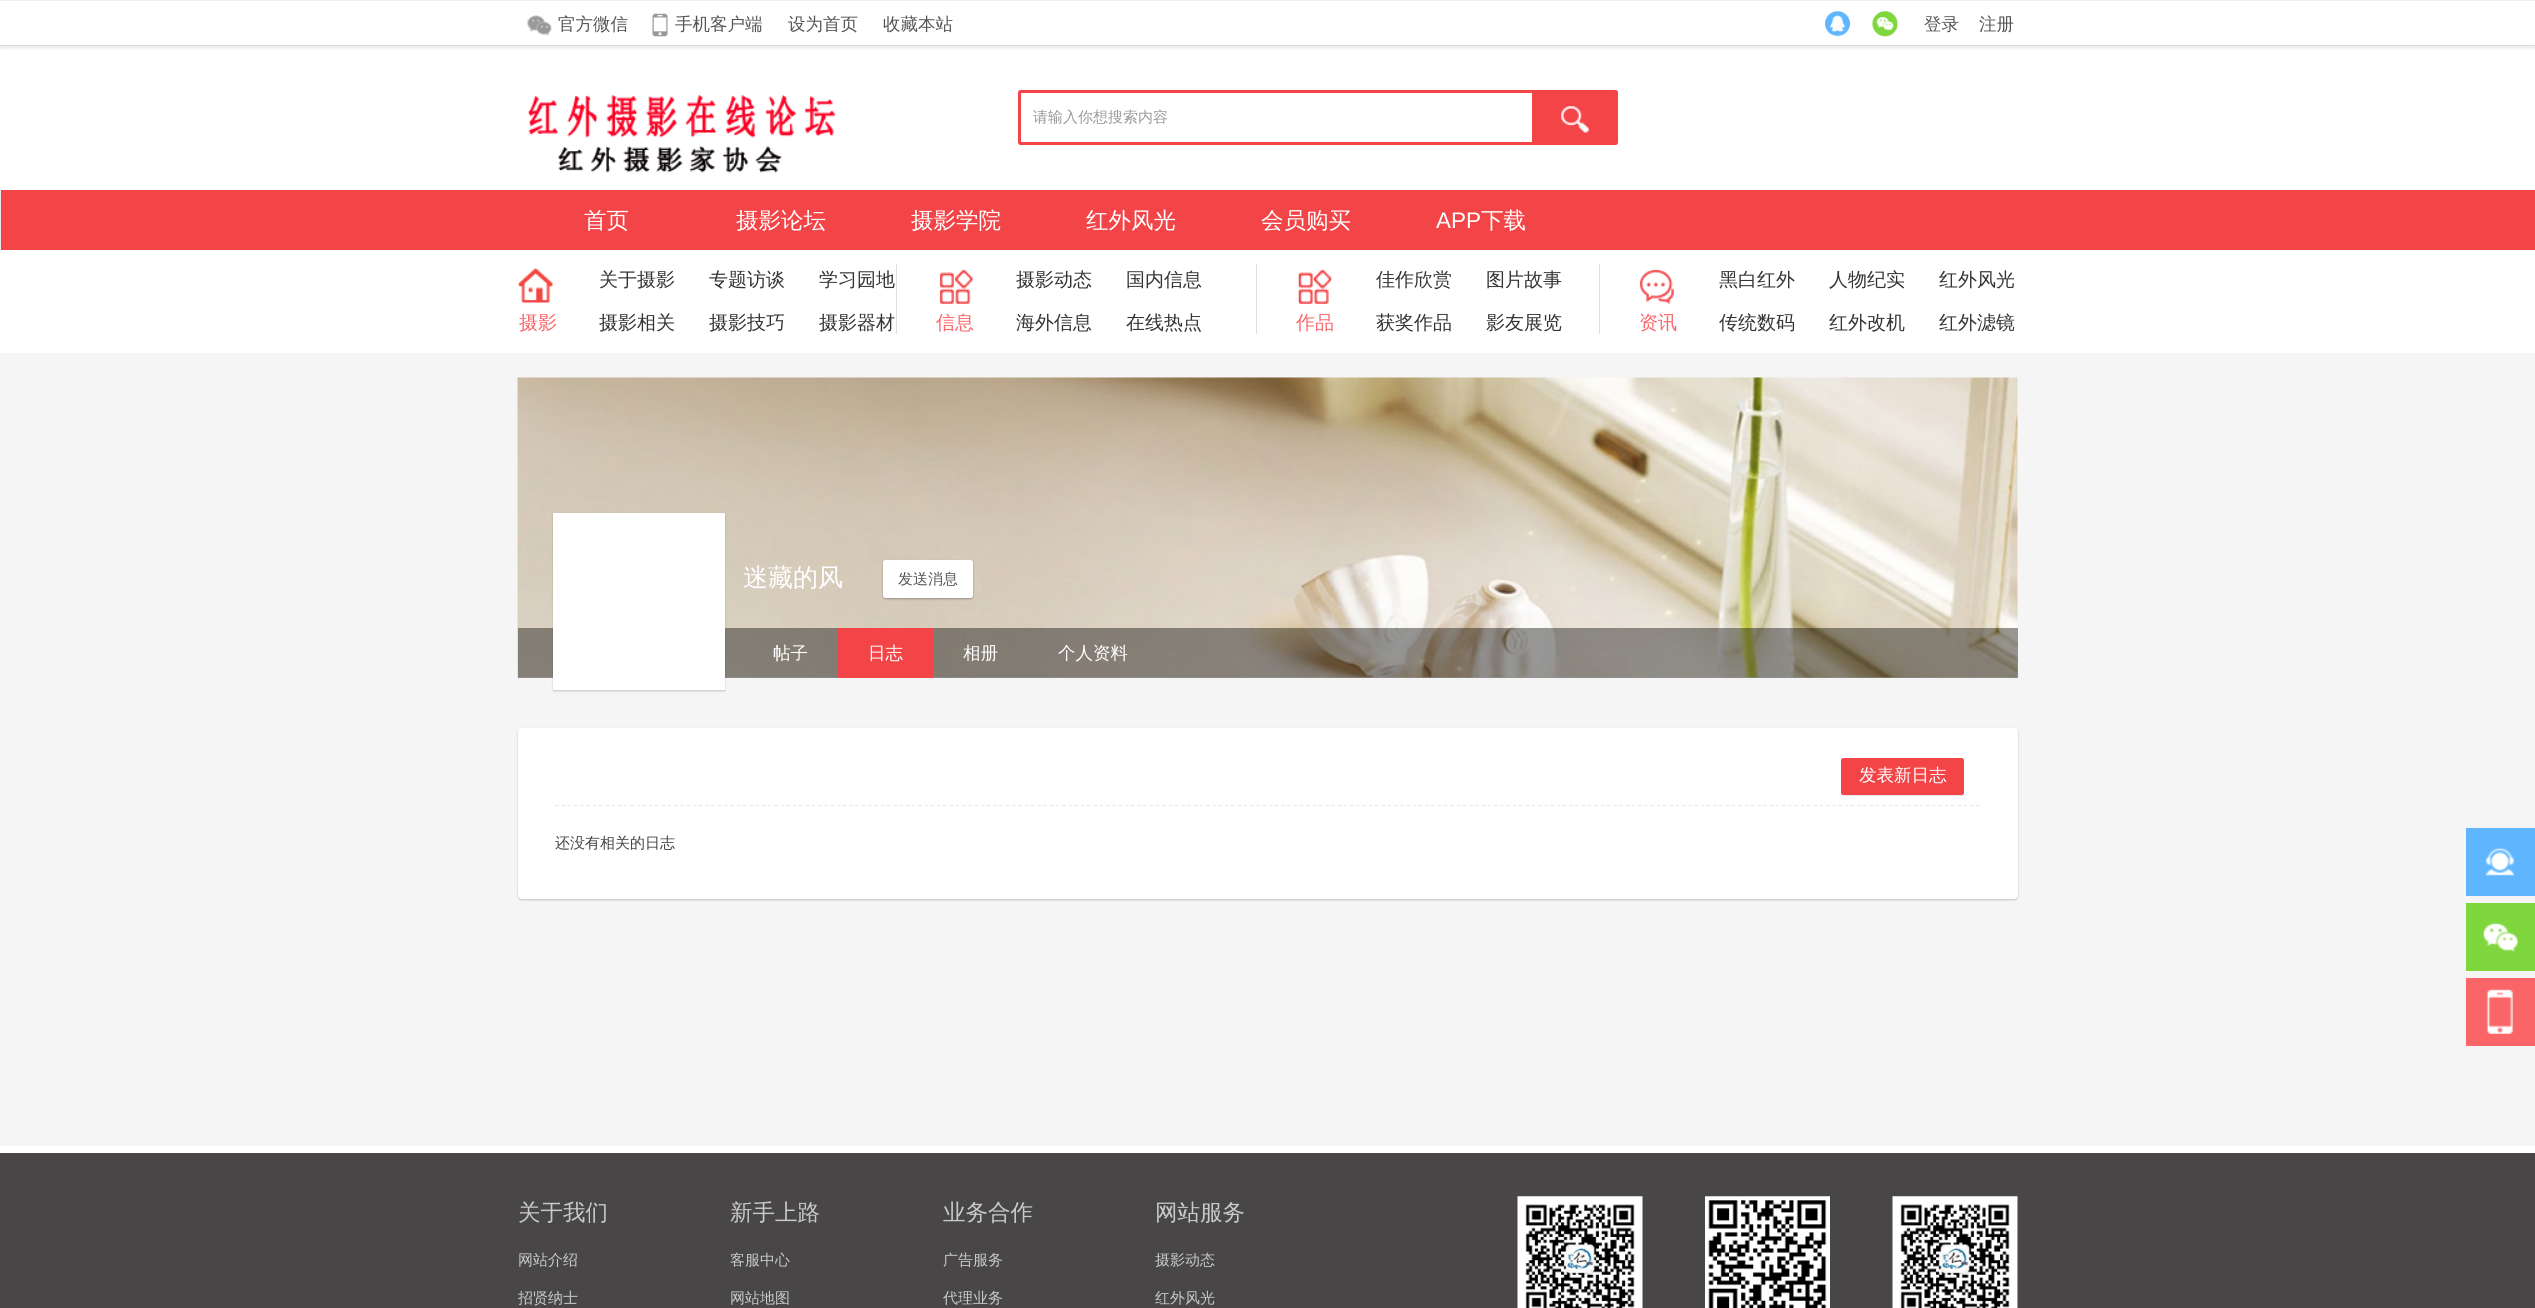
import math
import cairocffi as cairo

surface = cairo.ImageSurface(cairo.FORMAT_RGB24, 2535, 1308)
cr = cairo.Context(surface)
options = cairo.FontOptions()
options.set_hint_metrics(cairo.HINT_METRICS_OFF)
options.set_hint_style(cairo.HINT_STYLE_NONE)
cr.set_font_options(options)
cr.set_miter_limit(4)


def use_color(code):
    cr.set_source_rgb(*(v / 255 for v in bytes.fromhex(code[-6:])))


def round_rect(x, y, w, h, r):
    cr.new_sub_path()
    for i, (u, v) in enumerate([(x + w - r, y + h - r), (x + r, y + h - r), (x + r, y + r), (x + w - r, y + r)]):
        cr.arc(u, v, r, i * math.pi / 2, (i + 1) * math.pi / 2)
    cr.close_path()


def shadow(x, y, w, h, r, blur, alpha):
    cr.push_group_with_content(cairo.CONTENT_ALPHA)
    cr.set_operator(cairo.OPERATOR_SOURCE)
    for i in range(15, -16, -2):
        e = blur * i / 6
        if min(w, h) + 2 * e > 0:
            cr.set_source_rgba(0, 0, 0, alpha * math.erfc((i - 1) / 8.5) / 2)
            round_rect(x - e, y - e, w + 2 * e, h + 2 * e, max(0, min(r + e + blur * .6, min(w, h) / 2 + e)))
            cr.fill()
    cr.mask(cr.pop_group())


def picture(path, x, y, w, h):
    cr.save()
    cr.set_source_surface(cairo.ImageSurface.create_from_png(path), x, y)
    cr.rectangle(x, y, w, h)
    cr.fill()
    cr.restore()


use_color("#ffffff")
cr.paint()
use_color("#eeeeee")
cr.rectangle(0, 0, 2535, 1)
cr.fill()
cr.rectangle(0, 45, 2535, 1)
cr.fill()
cr.save()
cr.rectangle(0, 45, 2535, 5)
cr.clip()
use_color("#000000")
shadow(0, 4, 2535, 44, 0, 2.5, 0.1)
cr.restore()
picture("img1.png", 527, 15, 25, 21)
cr.select_font_face("WenQuanYi Zen Hei Medium")
cr.set_font_size(17.5)
use_color("#555555")
cr.move_to(558, 30)
cr.show_text("官方微信")
picture("img2.png", 652, 13, 16, 24)
cr.move_to(675, 30)
cr.show_text("手机客户端")
cr.move_to(788, 30)
cr.show_text("设为首页")
cr.move_to(883, 30)
cr.show_text("收藏本站")
picture("img3.png", 1825, 11, 25, 26)
picture("img4.png", 1872, 11, 26, 26)
cr.move_to(1924, 30)
cr.show_text("登录")
cr.move_to(1979, 30)
cr.show_text("注册")
picture("img5.png", 528, 94, 308, 79)
cr.new_path()
cr.move_to(1020.5, 91.5)
cr.line_to(1533.5, 91.5)
cr.line_to(1533.5, 143.5)
cr.line_to(1020.5, 143.5)
cr.curve_to(1020, 143.5, 1019.5, 143, 1019.5, 142.5)
cr.line_to(1019.5, 92.5)
cr.curve_to(1019.5, 92, 1020, 91.5, 1020.5, 91.5)
cr.close_path()
use_color("#f34548")
cr.set_line_width(3)
cr.stroke()
cr.set_font_size(15)
use_color("#999999")
cr.move_to(1033, 122)
cr.show_text("请输入你想搜索内容")
use_color("#f34548")
cr.new_path()
cr.move_to(1535, 90)
cr.line_to(1615.5, 90)
cr.curve_to(1617, 90, 1618, 91, 1618, 92.5)
cr.line_to(1618, 142.5)
cr.curve_to(1618, 144, 1617, 145, 1615.5, 145)
cr.line_to(1535, 145)
cr.close_path()
cr.fill()
picture("img6.png", 1561, 106, 28, 27)
cr.rectangle(1, 190, 2534, 60)
cr.fill()
use_color("#e8e8e8")
cr.rectangle(0, 190, 1, 60)
cr.fill()
cr.set_font_size(22.5)
use_color("#ffffff")
cr.move_to(584, 228)
cr.show_text("首页")
cr.move_to(736, 228)
cr.show_text("摄影论坛")
cr.move_to(911, 228)
cr.show_text("摄影学院")
cr.move_to(1086, 228)
cr.show_text("红外风光")
cr.move_to(1261, 228)
cr.show_text("会员购买")
cr.select_font_face("Liberation Sans")
cr.move_to(1436, 228)
cr.show_text("APP")
cr.select_font_face("WenQuanYi Zen Hei Medium")
cr.move_to(1481, 228)
cr.show_text("下载")
picture("img7.png", 518, 268, 35, 35)
cr.set_font_size(19)
use_color("#fa6567")
cr.move_to(519, 329)
cr.show_text("摄影")
use_color("#333333")
cr.move_to(599, 286)
cr.show_text("关于摄影")
cr.move_to(709, 286)
cr.show_text("专题访谈")
cr.move_to(819, 286)
cr.show_text("学习园地")
cr.move_to(599, 329)
cr.show_text("摄影相关")
cr.move_to(709, 329)
cr.show_text("摄影技巧")
cr.move_to(819, 329)
cr.show_text("摄影器材")
use_color("#dedede")
cr.rectangle(896, 264, 1, 70)
cr.fill()
picture("img8.png", 939, 269, 34, 35)
use_color("#fa6567")
cr.move_to(936, 329)
cr.show_text("信息")
use_color("#333333")
cr.move_to(1016, 286)
cr.show_text("摄影动态")
cr.move_to(1126, 286)
cr.show_text("国内信息")
cr.move_to(1016, 329)
cr.show_text("海外信息")
cr.move_to(1126, 329)
cr.show_text("在线热点")
use_color("#dedede")
cr.rectangle(1256, 264, 1, 70)
cr.fill()
picture("img9.png", 1298, 269, 34, 35)
use_color("#fa6567")
cr.move_to(1296, 329)
cr.show_text("作品")
use_color("#333333")
cr.move_to(1376, 286)
cr.show_text("佳作欣赏")
cr.move_to(1486, 286)
cr.show_text("图片故事")
cr.move_to(1376, 329)
cr.show_text("获奖作品")
cr.move_to(1486, 329)
cr.show_text("影友展览")
use_color("#dedede")
cr.rectangle(1599, 264, 1, 70)
cr.fill()
picture("img10.png", 1639, 269, 35, 35)
use_color("#fa6567")
cr.move_to(1639, 329)
cr.show_text("资讯")
use_color("#333333")
cr.move_to(1719, 286)
cr.show_text("黑白红外")
cr.move_to(1829, 286)
cr.show_text("人物纪实")
cr.move_to(1939, 286)
cr.show_text("红外风光")
cr.move_to(1719, 329)
cr.show_text("传统数码")
cr.move_to(1829, 329)
cr.show_text("红外改机")
cr.move_to(1939, 329)
cr.show_text("红外滤镜")
use_color("#f5f5f5")
cr.rectangle(0, 353, 2535, 793)
cr.fill()
picture("img11.png", 517, 377, 1501, 301)
cr.set_source_rgba(0, 0, 0, 0.4)
cr.rectangle(518, 628, 1500, 50)
cr.fill()
use_color("#000000")
shadow(553, 514, 172, 177, 0, 1, 0.2)
use_color("#ffffff")
cr.rectangle(553, 513, 172, 177)
cr.fill()
cr.set_font_size(25)
cr.move_to(743, 586)
cr.show_text("迷藏的风")
use_color("#000000")
shadow(883, 561, 90, 38, 2.5, 1, 0.3)
use_color("#ffffff")
round_rect(883, 560, 90, 38, 2.5)
cr.fill()
cr.set_font_size(15)
use_color("#555555")
cr.move_to(898, 584)
cr.show_text("发送消息")
cr.set_font_size(17.5)
use_color("#ffffff")
cr.move_to(773, 659)
cr.show_text("帖子")
use_color("#f34548")
cr.rectangle(838, 628, 95, 50)
cr.fill()
use_color("#ffffff")
cr.move_to(868, 659)
cr.show_text("日志")
cr.move_to(963, 659)
cr.show_text("相册")
cr.move_to(1058, 659)
cr.show_text("个人资料")
use_color("#000000")
shadow(518, 729, 1500, 171, 4, 1, 0.2)
use_color("#ffffff")
round_rect(518, 728, 1500, 171, 4)
cr.fill()
cr.new_path()
cr.move_to(555, 805.5)
cr.line_to(1980, 805.5)
use_color("#e8e8e8")
cr.set_line_width(1.2)
cr.set_dash([3.75, 2.51])
cr.stroke()
use_color("#e5e5e5")
cr.new_path()
cr.move_to(1841, 760)
cr.line_to(1841, 794)
cr.curve_to(1841, 795, 1842, 796, 1844, 796)
cr.line_to(1962, 796)
cr.curve_to(1963, 796, 1964, 795, 1964, 794)
cr.line_to(1964, 760)
cr.line_to(1964, 792)
cr.curve_to(1964, 794, 1963, 795, 1961, 795)
cr.line_to(1844, 795)
cr.curve_to(1842, 795, 1841, 794, 1841, 792)
cr.close_path()
cr.fill()
use_color("#f34548")
round_rect(1841.5, 758.5, 122, 36, 2)
cr.fill_preserve()
cr.set_line_width(1)
cr.set_dash([])
cr.stroke()
use_color("#ffffff")
cr.move_to(1859, 781)
cr.show_text("发表新日志")
cr.set_font_size(15)
use_color("#444444")
cr.move_to(555, 848)
cr.show_text("还没有相关的日志")
use_color("#5fb6ff")
cr.rectangle(2466, 828, 69, 68)
cr.fill()
picture("img12.png", 2485, 848, 30, 28)
use_color("#80d63d")
cr.rectangle(2466, 903, 69, 68)
cr.fill()
picture("img13.png", 2483, 923, 35, 29)
use_color("#fa6567")
cr.rectangle(2466, 978, 69, 68)
cr.fill()
picture("img14.png", 2486, 989, 27, 45)
use_color("#484647")
cr.rectangle(0, 1153, 2535, 155)
cr.fill()
cr.set_font_size(22.5)
use_color("#cacaca")
cr.move_to(518, 1220)
cr.show_text("关于我们")
cr.set_font_size(15)
cr.move_to(518, 1265)
cr.show_text("网站介绍")
cr.move_to(518, 1303)
cr.show_text("招贤纳士")
cr.set_font_size(22.5)
cr.move_to(730, 1220)
cr.show_text("新手上路")
cr.set_font_size(15)
cr.move_to(730, 1265)
cr.show_text("客服中心")
cr.move_to(730, 1303)
cr.show_text("网站地图")
cr.set_font_size(22.5)
cr.move_to(943, 1220)
cr.show_text("业务合作")
cr.set_font_size(15)
cr.move_to(943, 1265)
cr.show_text("广告服务")
cr.move_to(943, 1303)
cr.show_text("代理业务")
cr.set_font_size(22.5)
cr.move_to(1155, 1220)
cr.show_text("网站服务")
cr.set_font_size(15)
cr.move_to(1155, 1265)
cr.show_text("摄影动态")
cr.move_to(1155, 1303)
cr.show_text("红外风光")
picture("img15.png", 1517, 1196, 126, 112)
picture("img16.png", 1705, 1196, 125, 112)
picture("img15.png", 1892, 1196, 126, 112)
surface.write_to_png("result.png")
